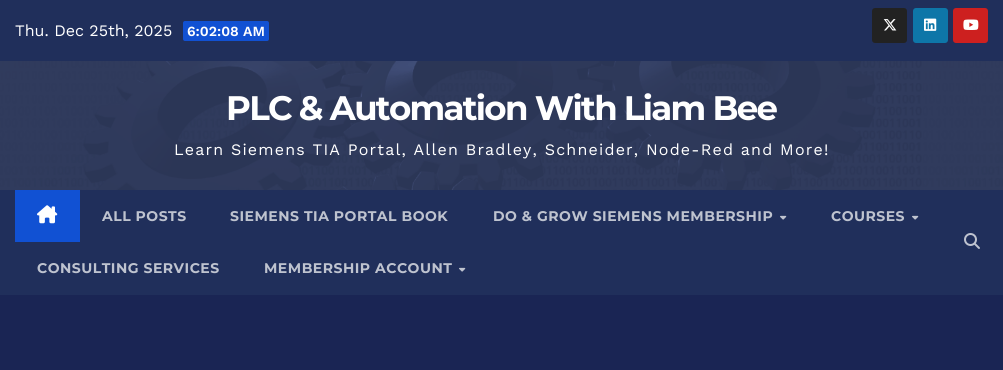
import math
import cairocffi as cairo

surface = cairo.ImageSurface(cairo.FORMAT_RGB24, 1003, 370)
cr = cairo.Context(surface)
options = cairo.FontOptions()
options.set_hint_metrics(cairo.HINT_METRICS_OFF)
options.set_hint_style(cairo.HINT_STYLE_NONE)
cr.set_font_options(options)
cr.set_miter_limit(4)


def use_color(code):
    cr.set_source_rgb(*(v / 255 for v in bytes.fromhex(code[-6:])))


def spaced_text(x, y, s, letter, word):
    cr.move_to(x, y)
    for ch in s:
        cr.show_text(ch)
        cr.rel_move_to(letter + word * (ch == ' '), 0)


def round_rect(x, y, w, h, r):
    cr.new_sub_path()
    for i, (u, v) in enumerate([(x + w - r, y + h - r), (x + r, y + h - r), (x + r, y + r), (x + w - r, y + r)]):
        cr.arc(u, v, r, i * math.pi / 2, (i + 1) * math.pi / 2)
    cr.close_path()


def picture(path, x, y, w, h):
    cr.save()
    cr.set_source_surface(cairo.ImageSurface.create_from_png(path), x, y)
    cr.rectangle(x, y, w, h)
    cr.fill()
    cr.restore()


use_color("#1a2554")
cr.paint()
use_color("#202f5b")
cr.rectangle(0, 0, 1003, 61)
cr.fill()
cr.select_font_face("Work Sans")
cr.set_font_size(16)
use_color("#ffffff")
cr.move_to(15, 36)
cr.show_text("Thu. Dec 25th, 2025")
use_color("#1151d3")
round_rect(183, 21, 86, 20, 2)
cr.fill()
cr.select_font_face("Work Sans SemiBold")
cr.set_font_size(14)
use_color("#ffffff")
cr.move_to(187, 36)
cr.show_text("6:02:08 AM")
use_color("#222222")
round_rect(872, 8, 35, 35, 3)
cr.fill()
picture("img1.png", 883, 19, 14, 12)
use_color("#0e76a8")
round_rect(913, 8, 35, 35, 3)
cr.fill()
picture("img2.png", 924, 18, 13, 13)
use_color("#cd201f")
round_rect(953, 8, 35, 35, 3)
cr.fill()
picture("img3.png", 963, 19, 16, 11)
picture("img4.png", 0, 61, 1003, 129)
cr.select_font_face("Montserrat", cairo.FONT_SLANT_NORMAL, cairo.FONT_WEIGHT_BOLD)
cr.set_font_size(34)
use_color("#ffffff")
spaced_text(226, 120, "PLC & Automation With Liam Bee", -1.7, 0)
cr.select_font_face("Work Sans")
cr.set_font_size(16)
spaced_text(174, 155, "Learn Siemens TIA Portal, Allen Bradley, Schneider, Node-Red and More!", 1.2, 0)
use_color("#202f5b")
cr.rectangle(0, 190, 1003, 105)
cr.fill()
use_color("#1151d3")
cr.rectangle(15, 190, 65, 52)
cr.fill()
picture("img5.png", 37, 205, 21, 19)
cr.select_font_face("Montserrat", cairo.FONT_SLANT_NORMAL, cairo.FONT_WEIGHT_BOLD)
cr.set_font_size(14)
use_color("#bec3cf")
spaced_text(102, 221, "ALL POSTS", 0.5, 0)
spaced_text(230, 221, "SIEMENS TIA PORTAL BOOK", 0.5, 0)
spaced_text(493, 221, "DO & GROW SIEMENS MEMBERSHIP", 0.5, 0)
picture("img6.png", 780, 215, 7, 5)
spaced_text(831, 221, "COURSES", 0.5, 0)
picture("img6.png", 912, 215, 7, 5)
spaced_text(37, 273, "CONSULTING SERVICES", 0.5, 0)
spaced_text(264, 273, "MEMBERSHIP ACCOUNT", 0.5, 0)
picture("img6.png", 459, 267, 7, 5)
picture("img7.png", 964, 233, 16, 16)
surface.write_to_png("result.png")
